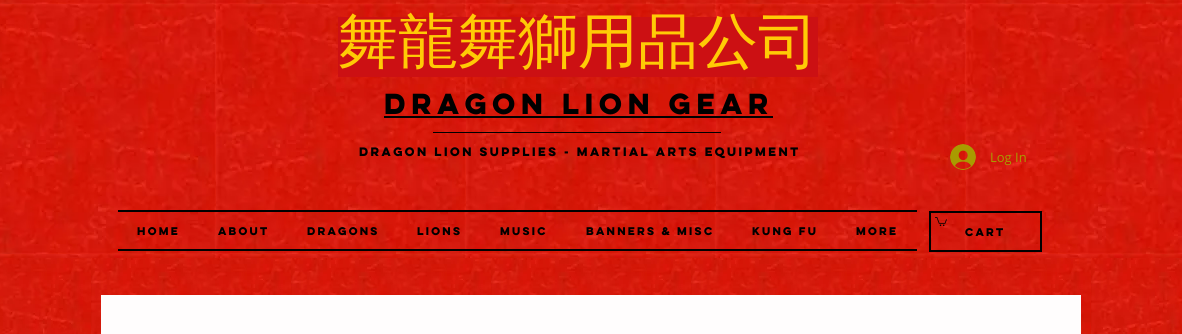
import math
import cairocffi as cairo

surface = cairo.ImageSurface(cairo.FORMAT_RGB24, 1182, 334)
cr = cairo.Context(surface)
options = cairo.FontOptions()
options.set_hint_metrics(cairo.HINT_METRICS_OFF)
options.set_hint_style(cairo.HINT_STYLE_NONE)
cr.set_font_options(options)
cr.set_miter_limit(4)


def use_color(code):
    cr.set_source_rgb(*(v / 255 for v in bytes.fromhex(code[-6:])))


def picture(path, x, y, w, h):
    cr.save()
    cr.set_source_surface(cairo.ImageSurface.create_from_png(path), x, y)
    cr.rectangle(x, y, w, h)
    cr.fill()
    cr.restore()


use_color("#ffffff")
cr.paint()
picture("img1.png", 0, 0, 1182, 258)
use_color("#cc1013")
cr.rectangle(338, 17, 480, 60)
cr.fill()
cr.select_font_face("WenQuanYi Zen Hei Medium")
cr.set_font_size(60)
use_color("#ffcb05")
cr.move_to(338, 62)
cr.show_text("舞龍舞獅用品公司")
cr.select_font_face("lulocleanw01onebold", cairo.FONT_SLANT_NORMAL, cairo.FONT_WEIGHT_BOLD)
cr.set_font_size(26)
use_color("#000000")
cr.move_to(384, 114)
cr.show_text("DRAGON LION GEAR")
cr.rectangle(384, 116, 389, 2)
cr.fill()
cr.rectangle(433, 132, 288, 1)
cr.fill()
cr.set_font_size(11)
cr.move_to(359, 156)
cr.show_text("DRAGON LION SUPPLIES - MARTIAL ARTS EQUIPMENT")
picture("img2.png", 950, 144, 26, 26)
cr.select_font_face("Open Sans")
cr.set_font_size(13)
use_color("#a99b00")
cr.move_to(990, 162)
cr.show_text("Log In")
use_color("#000000")
cr.rectangle(118, 210, 799, 2)
cr.fill()
cr.rectangle(118, 249, 799, 2)
cr.fill()
cr.select_font_face("lulocleanw01onebold", cairo.FONT_SLANT_NORMAL, cairo.FONT_WEIGHT_BOLD)
cr.set_font_size(10)
cr.move_to(137, 235)
cr.show_text("HOME")
cr.move_to(218, 235)
cr.show_text("ABOUT")
cr.move_to(307, 235)
cr.show_text("DRAGONS")
cr.move_to(417, 235)
cr.show_text("LIONS")
cr.move_to(500, 235)
cr.show_text("MUSIC")
cr.move_to(586, 235)
cr.show_text("BANNERS & MISC")
cr.move_to(752, 235)
cr.show_text("KUNG FU")
cr.move_to(856, 235)
cr.show_text("More")
cr.rectangle(930, 212, 111, 39)
cr.stroke()
picture("img3.png", 935, 217, 12, 10)
cr.move_to(965, 236)
cr.show_text("Cart")
picture("img4.png", 0, 258, 1182, 76)
cr.set_source_rgba(1, 1, 1, 0.99)
cr.rectangle(101, 295, 980, 39)
cr.fill()
surface.write_to_png("result.png")
